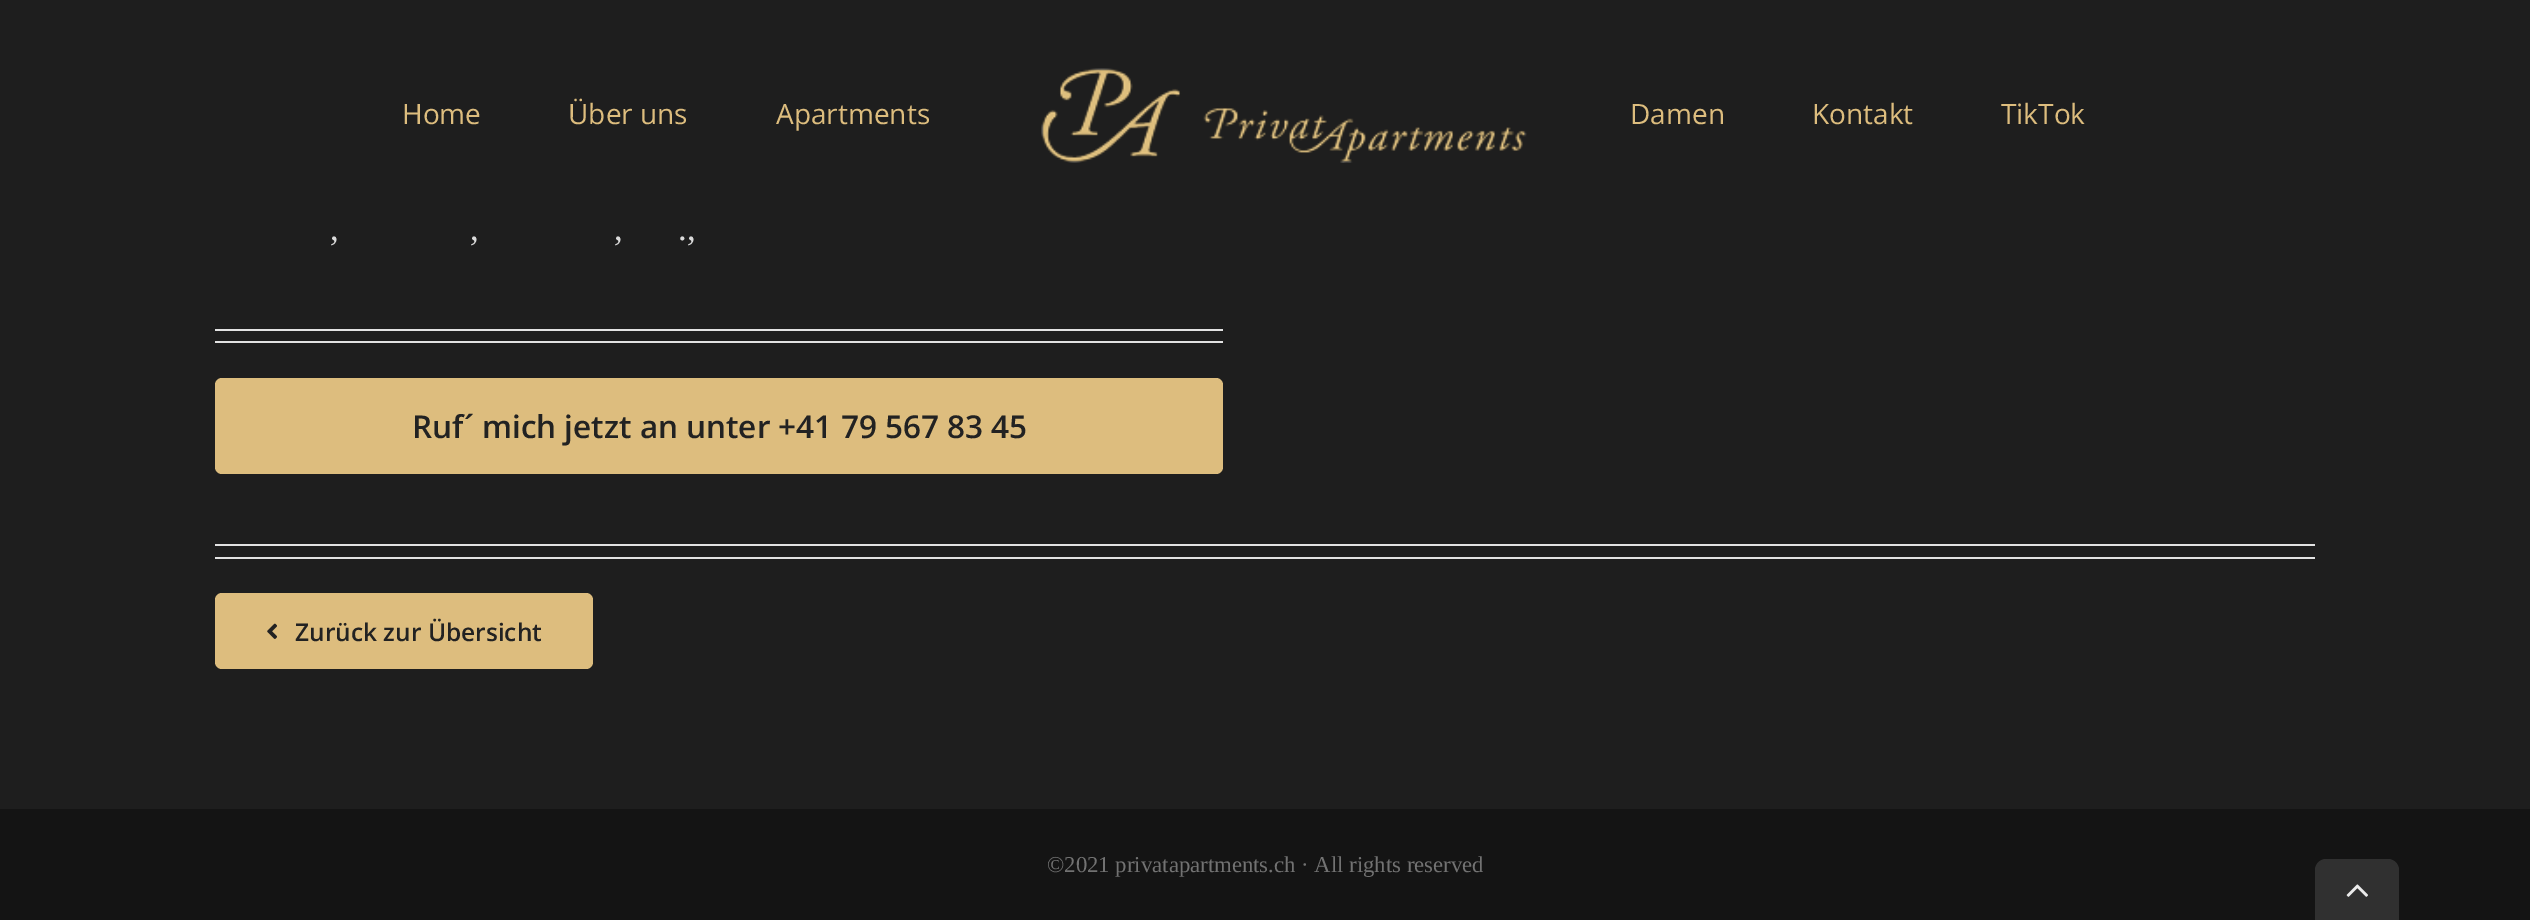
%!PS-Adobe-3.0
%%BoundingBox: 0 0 2530 920
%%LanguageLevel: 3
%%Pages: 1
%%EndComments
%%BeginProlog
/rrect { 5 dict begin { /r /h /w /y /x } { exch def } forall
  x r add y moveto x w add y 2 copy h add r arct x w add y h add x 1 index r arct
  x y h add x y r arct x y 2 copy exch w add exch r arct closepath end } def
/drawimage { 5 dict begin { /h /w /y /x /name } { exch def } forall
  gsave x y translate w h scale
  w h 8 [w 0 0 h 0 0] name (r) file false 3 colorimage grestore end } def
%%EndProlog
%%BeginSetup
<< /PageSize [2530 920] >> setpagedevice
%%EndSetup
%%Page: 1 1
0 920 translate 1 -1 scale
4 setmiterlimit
0.118 setgray
0 0 2530 920 rectfill
(images/1.raw) 1041 68 486 95 drawimage
0.886 setgray
215 329 1008 2 rectfill
215 341 1008 2 rectfill
0.867 0.741 0.494 setrgbcolor
215 378 1008 96 7 rrect fill
0.886 setgray
215 544 2100 2 rectfill
215 557 2100 2 rectfill
0.867 0.741 0.494 setrgbcolor
215 593 378 76 7 rrect fill
(images/2.raw) 267 623 10 16 drawimage
0.078 setgray
0 809 2530 111 rectfill
0.188 setgray
newpath 2326 859 moveto 2388 859 lineto 2394 859 2399 864 2399 870 curveto 2399 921 lineto 2315 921 lineto 2315 870 lineto 2315 864 2320 859 2326 859 curveto closepath fill
(images/3.raw) 2346 884 22 13 drawimage
/OpenSans-Regular [28 0 0 -28 0 0] selectfont
0.867 0.741 0.494 setrgbcolor
402 124 moveto (Home) show
568 124 moveto (Über uns) show
776 124 moveto (Apartments) show
1630 124 moveto (Damen) show
1812 124 moveto (Kontakt) show
2001 124 moveto (TikTok) show
/LiberationSerif-Regular [35 0 0 -35 0 0] selectfont
0.859 setgray
330 240 moveto (,) show
470 240 moveto (,) show
614 240 moveto (,) show
678 240 moveto (.,) show
/OpenSans-SemiBold [31.5 0 0 -31.5 0 0] selectfont
0.133 setgray
412 438 moveto (Ruf´ mich jetzt an unter +41 79 567 83 45) show
/OpenSans-SemiBold [24.5 0 0 -24.5 0 0] selectfont
295 641 moveto (Zurück zur Übersicht) show
/LiberationSerif-Regular [22.75 0 0 -22.75 0 0] selectfont
0.447 setgray
1047 872 moveto (©2021 privatapartments.ch · All rights reserved) show
showpage
%%EOF
